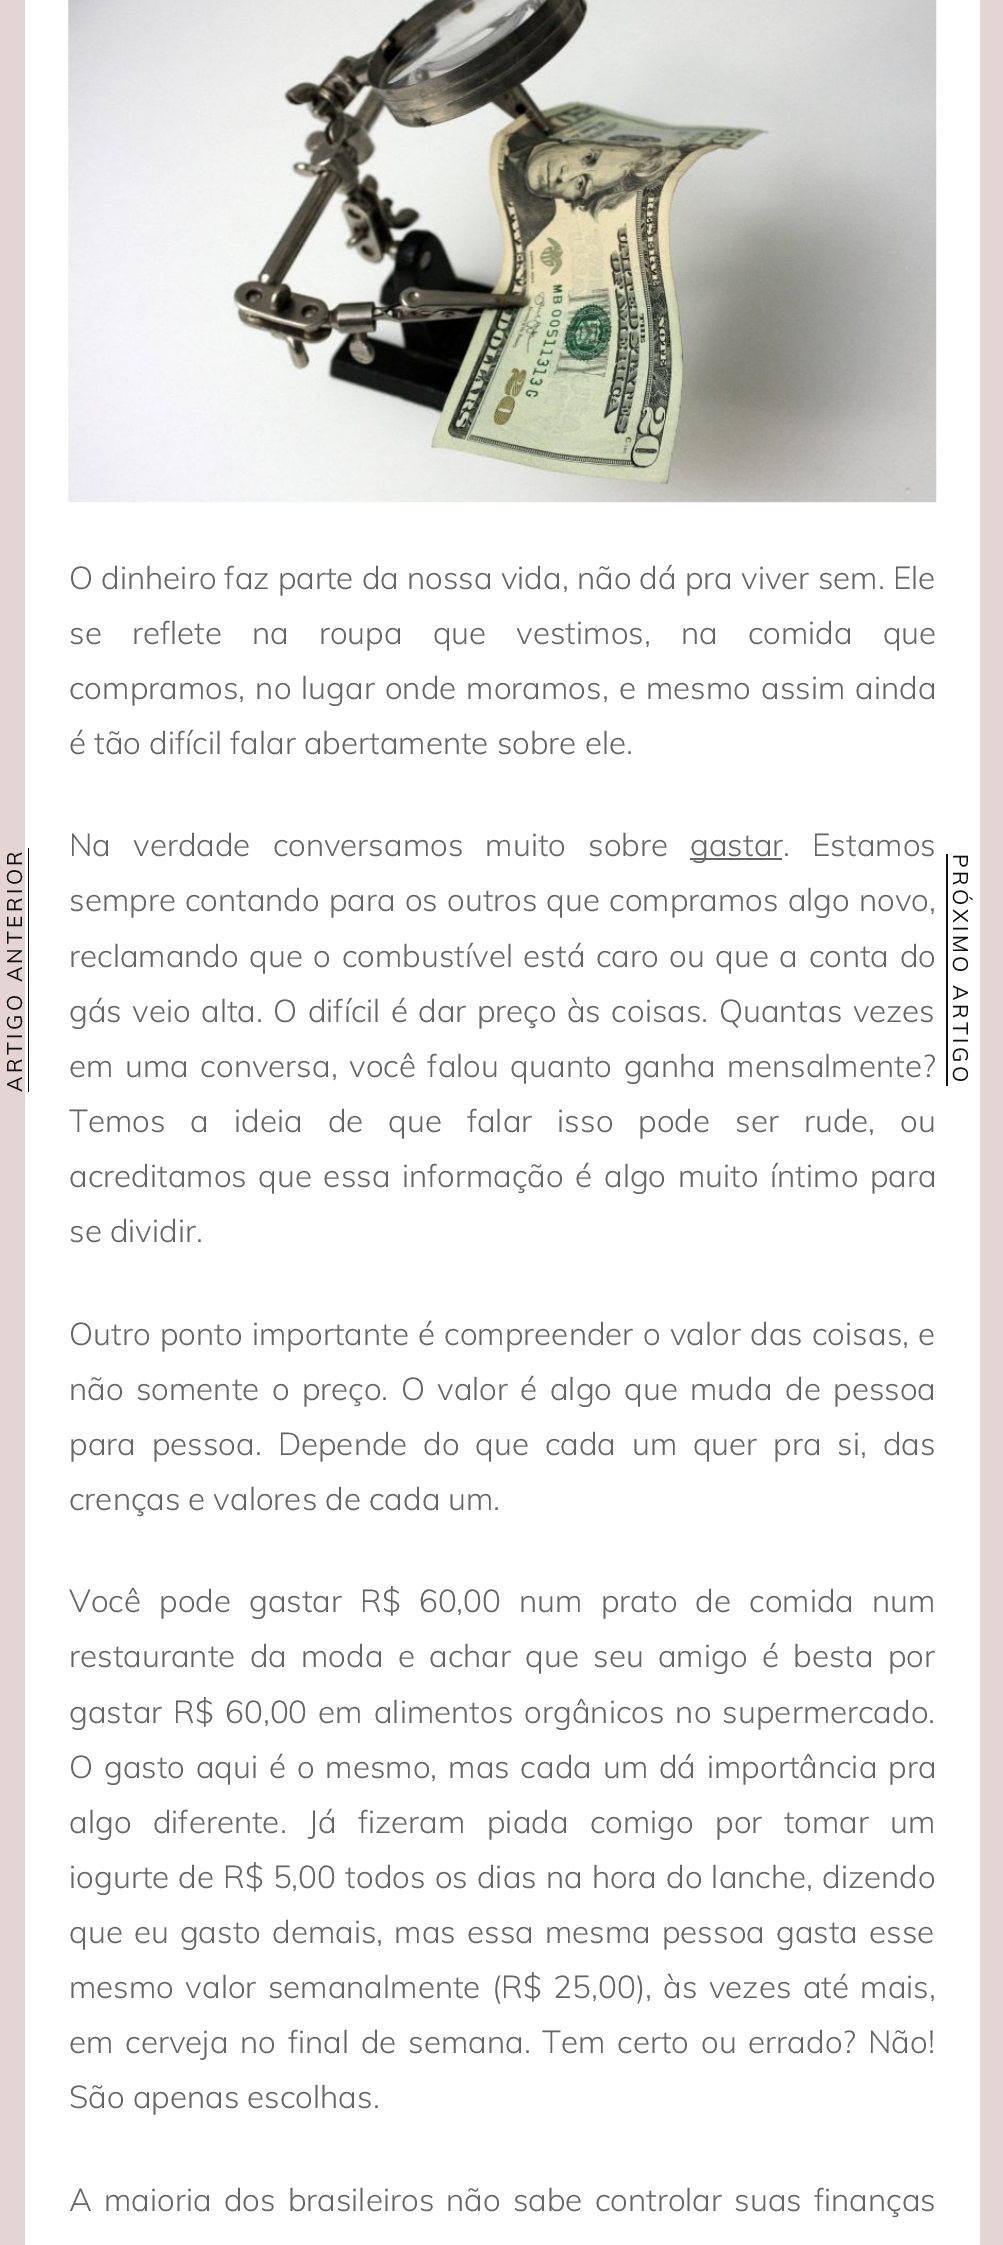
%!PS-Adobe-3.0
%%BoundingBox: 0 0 1003 2245
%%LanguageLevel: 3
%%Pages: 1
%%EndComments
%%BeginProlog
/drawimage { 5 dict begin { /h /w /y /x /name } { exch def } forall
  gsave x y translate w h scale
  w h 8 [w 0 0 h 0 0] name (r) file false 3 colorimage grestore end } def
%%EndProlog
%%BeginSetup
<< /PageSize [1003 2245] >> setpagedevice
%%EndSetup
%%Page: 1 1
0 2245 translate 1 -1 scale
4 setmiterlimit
0.894 0.831 0.831 setrgbcolor
0 0 1003 2245 rectfill
1 setgray
25 0 955 2245 rectfill
(images/1.raw) 68 0 869 503 drawimage
0.4 setgray
690 858 92 2 rectfill
0.067 setgray
28 848 1 244 rectfill
946 854 2 232 rectfill
/Muli-Light [31.5 0 0 -31.5 0 0] selectfont
0.4 setgray
69 589 moveto 0.1 0 32 (O dinheiro faz parte da nossa vida, não dá pra viver sem. Ele) widthshow
69 644 moveto 22 0 32 (se reflete na roupa que vestimos, na comida que) widthshow
69 699 moveto 2 0 32 (compramos, no lugar onde moramos, e mesmo assim ainda) widthshow
69 754 moveto (é tão difícil falar abertamente sobre ele.) show
69 856 moveto 14 0 32 (Na verdade conversamos muito sobre) widthshow
690 856 moveto (gastar) show
783 856 moveto 14 0 32 (. Estamos) widthshow
69 911 moveto 1 0 32 (sempre contando para os outros que compramos algo novo,) widthshow
69 967 moveto 2.5 0 32 (reclamando que o combustível está caro ou que a conta do) widthshow
69 1022 moveto 2.25 0 32 (gás veio alta. O difícil é dar preço às coisas. Quantas vezes) widthshow
69 1077 moveto 3.5 0 32 (em uma conversa,) widthshow
349 1077 moveto 3.5 0 32 (você falou quanto ganha mensalmente?) widthshow
69 1132 moveto 16.9 0 32 (Temos a ideia de que falar isso pode ser rude, ou) widthshow
69 1187 moveto 3.5 0 32 (acreditamos que essa informação é algo muito íntimo para) widthshow
69 1242 moveto (se dividir.) show
69 1345 moveto 1.25 0 32 (Outro ponto importante é compreender o valor das coisas, e) widthshow
69 1400 moveto 4.25 0 32 (não somente o preço. O valor é algo que muda de pessoa) widthshow
69 1455 moveto 7.75 0 32 (para pessoa. Depende do que cada um quer pra si, das) widthshow
69 1510 moveto (crenças e valores de cada um.) show
69 1612 moveto 10 0 32 (Você pode gastar R$ 60,00 num prato de comida num) widthshow
69 1667 moveto 6.25 0 32 (restaurante da moda e achar que seu amigo é besta por) widthshow
69 1723 moveto 3 0 32 (gastar R$ 60,00 em alimentos orgânicos no supermercado.) widthshow
69 1778 moveto 2.75 0 32 (O gasto aqui é o mesmo, mas cada um dá importância pra) widthshow
69 1833 moveto 13.25 0 32 (algo diferente.) widthshow
308 1833 moveto 13.25 0 32 (Já fizeram piada comigo por tomar um) widthshow
69 1888 moveto 1 0 32 (iogurte de R$ 5,00 todos os dias na hora do lanche, dizendo) widthshow
69 1943 moveto 3 0 32 (que eu gasto demais, mas essa mesma pessoa gasta esse) widthshow
69 1998 moveto 3.25 0 32 (mesmo valor semanalmente \(R$ 25,00\), às vezes até mais,) widthshow
69 2053 moveto 3.75 0 32 (em cerveja no final de semana. Tem certo ou errado? Não!) widthshow
69 2108 moveto (São apenas escolhas.) show
69 2211 moveto 4 0 32 (A maioria dos brasileiros não sabe controlar suas finanças) widthshow
/Muli-Regular [21 0 0 -21 0 0] selectfont
0.067 setgray
gsave 22 1092 translate -90 rotate 0 0 moveto 3.5 0 (ARTIGO ANTERIOR) ashow grestore
gsave 953 854 translate 90 rotate 0 0 moveto 3.5 0 (PRÓXIMO ARTIGO) ashow grestore
showpage
%%EOF
